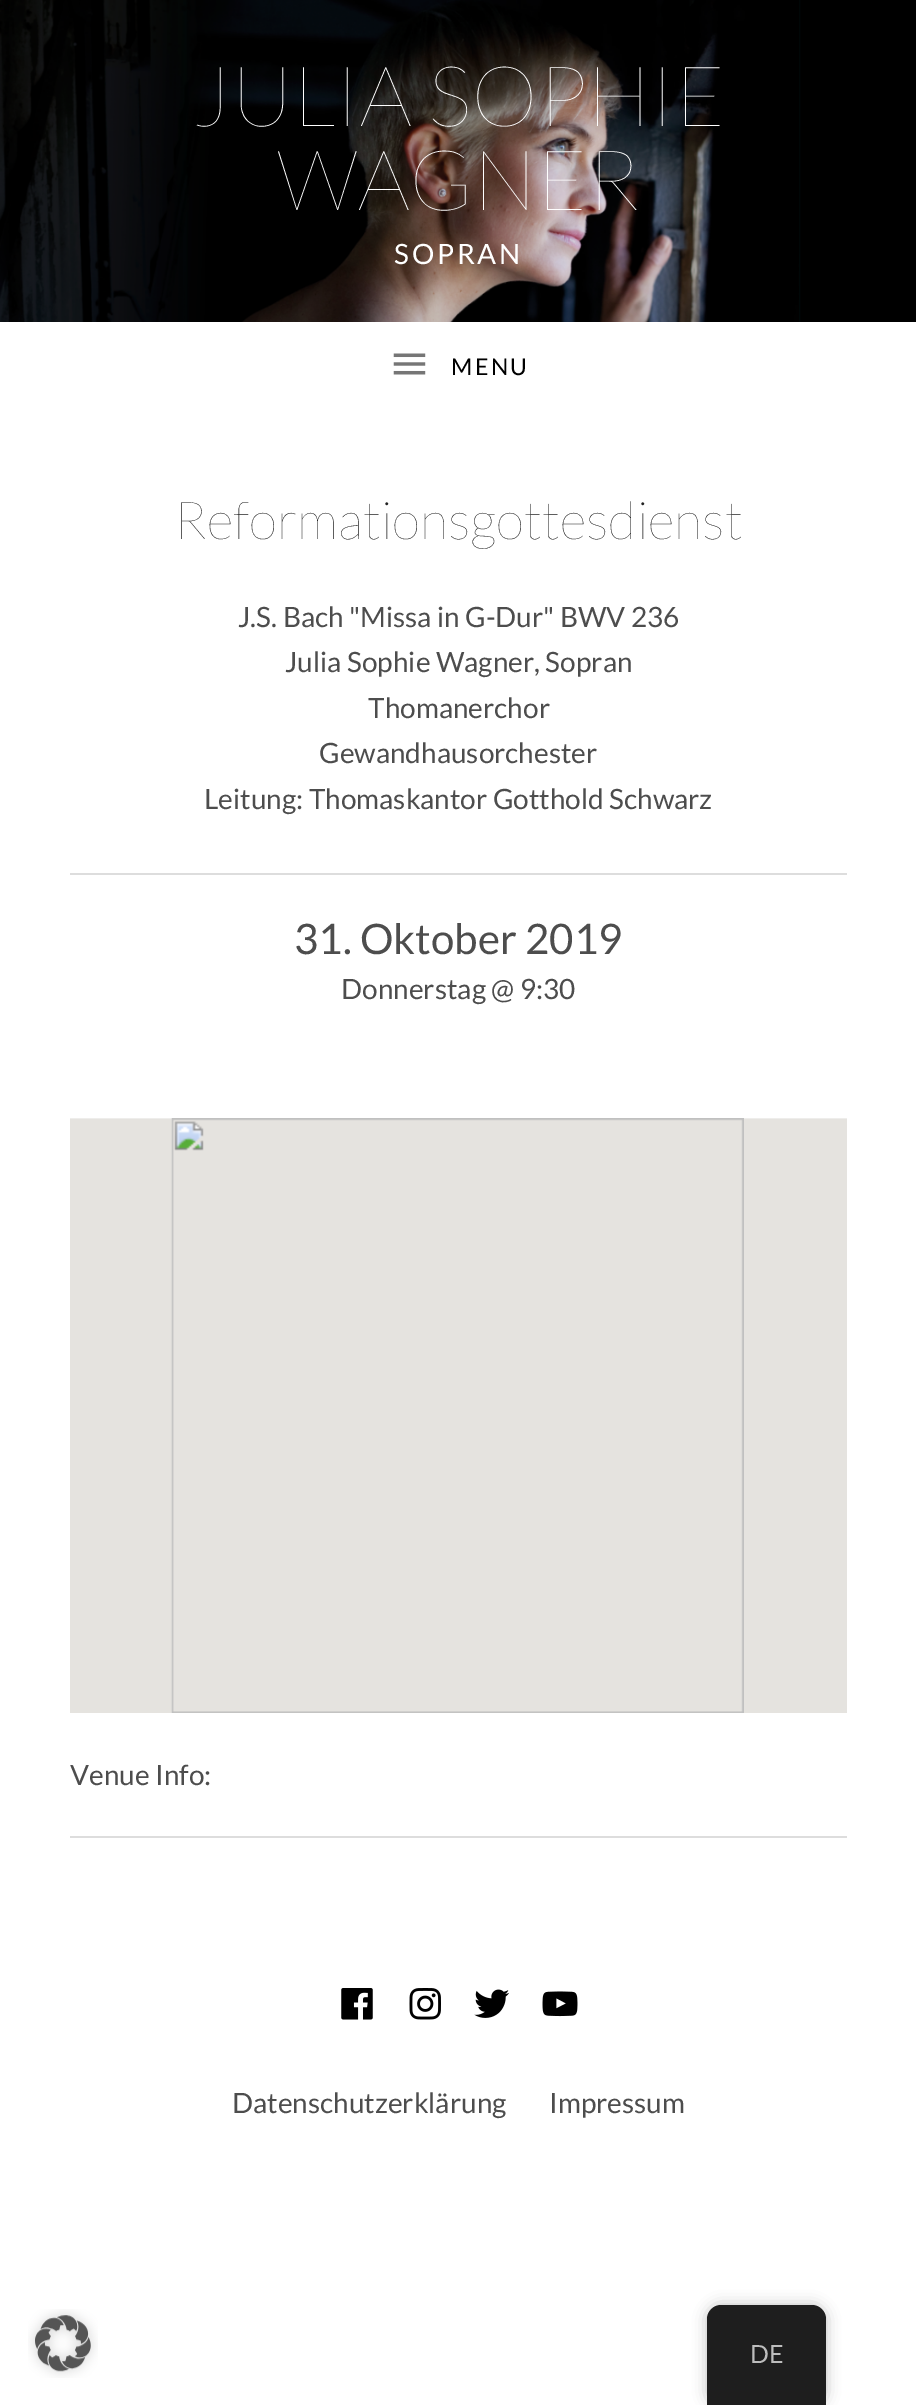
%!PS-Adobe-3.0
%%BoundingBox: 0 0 916 2405
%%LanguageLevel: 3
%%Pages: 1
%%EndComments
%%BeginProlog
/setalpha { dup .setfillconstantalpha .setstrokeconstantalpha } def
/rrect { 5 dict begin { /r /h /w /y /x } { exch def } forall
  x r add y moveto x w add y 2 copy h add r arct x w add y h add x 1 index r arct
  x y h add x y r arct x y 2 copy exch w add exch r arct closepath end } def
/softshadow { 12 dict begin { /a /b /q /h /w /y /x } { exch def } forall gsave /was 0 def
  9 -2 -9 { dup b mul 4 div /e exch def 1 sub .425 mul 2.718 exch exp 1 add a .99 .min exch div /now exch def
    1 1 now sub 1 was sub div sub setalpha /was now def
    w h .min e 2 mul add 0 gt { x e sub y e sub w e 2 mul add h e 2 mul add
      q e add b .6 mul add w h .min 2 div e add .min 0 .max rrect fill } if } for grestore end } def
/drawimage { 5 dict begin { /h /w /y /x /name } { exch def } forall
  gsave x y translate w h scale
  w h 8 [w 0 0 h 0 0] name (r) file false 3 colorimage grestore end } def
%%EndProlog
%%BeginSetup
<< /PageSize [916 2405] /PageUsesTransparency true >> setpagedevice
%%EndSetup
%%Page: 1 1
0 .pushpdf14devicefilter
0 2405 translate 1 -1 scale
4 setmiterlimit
1 setgray
0 0 916 2405 rectfill
(images/1.raw) 0 0 916 322 drawimage
(images/2.raw) 393 353 33 22 drawimage
0.867 setgray
70 873 777 2 rectfill
0.98 setgray
70 1118 777 1 rectfill
(images/3.raw) 70 1118 777 595 drawimage
0.867 setgray
70 1836 777 2 rectfill
(images/4.raw) 341 1988 32 32 drawimage
(images/5.raw) 409 1988 32 32 drawimage
(images/6.raw) 474 1989 35 29 drawimage
(images/7.raw) 542 1991 36 26 drawimage
(images/8.raw) 28 2309 70 69 drawimage
0 setgray
707 2305 119 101 14 7 0.25 softshadow
0.118 setgray
newpath 721 2305 moveto 812 2305 lineto 819.5 2305 826 2311.5 826 2319 curveto 826 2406 lineto 707 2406 lineto 707 2319 lineto 707 2311.5 713.5 2305 721 2305 curveto closepath fill
/Lato-Thin [84 0 0 -84 0 0] selectfont
1 setgray
192 126 moveto (JULIA SOPHIE) show
277 210 moveto (WAGNER) show
/Lato-Regular [28 0 0 -28 0 0] selectfont
394 264 moveto 2.75 0 (SOPRAN) ashow
/Lato-Regular [23 0 0 -23 0 0] selectfont
0 setgray
451 375 moveto 2.5 0 (MENU) ashow
/Lato-Thin [52.5 0 0 -52.5 0 0] selectfont
0.133 setgray
174 539 moveto (Reformationsgottesdienst) show
/Lato-Regular [28 0 0 -28 0 0] selectfont
0.302 setgray
238 627 moveto (J.S. Bach "Missa in G-Dur" BWV 236) show
285 672 moveto (Julia Sophie Wagner, Sopran) show
368 718 moveto (Thomanerchor) show
319 763 moveto (Gewandhausorchester) show
204 809 moveto (Leitung: Thomaskantor Gotthold Schwarz) show
/Lato-Regular [42 0 0 -42 0 0] selectfont
294 954 moveto (31. Oktober 2019) show
/Lato-Regular [28 0 0 -28 0 0] selectfont
341 999 moveto (Donnerstag @ 9:30) show
70 1785 moveto (Venue Info:) show
232 2113 moveto (Datenschutzerklärung) show
549 2113 moveto (Impressum) show
/Lato-Regular [25 0 0 -25 0 0] selectfont
0.741 setgray
750 2363 moveto (DE) show
.poppdf14devicefilter showpage
%%EOF
